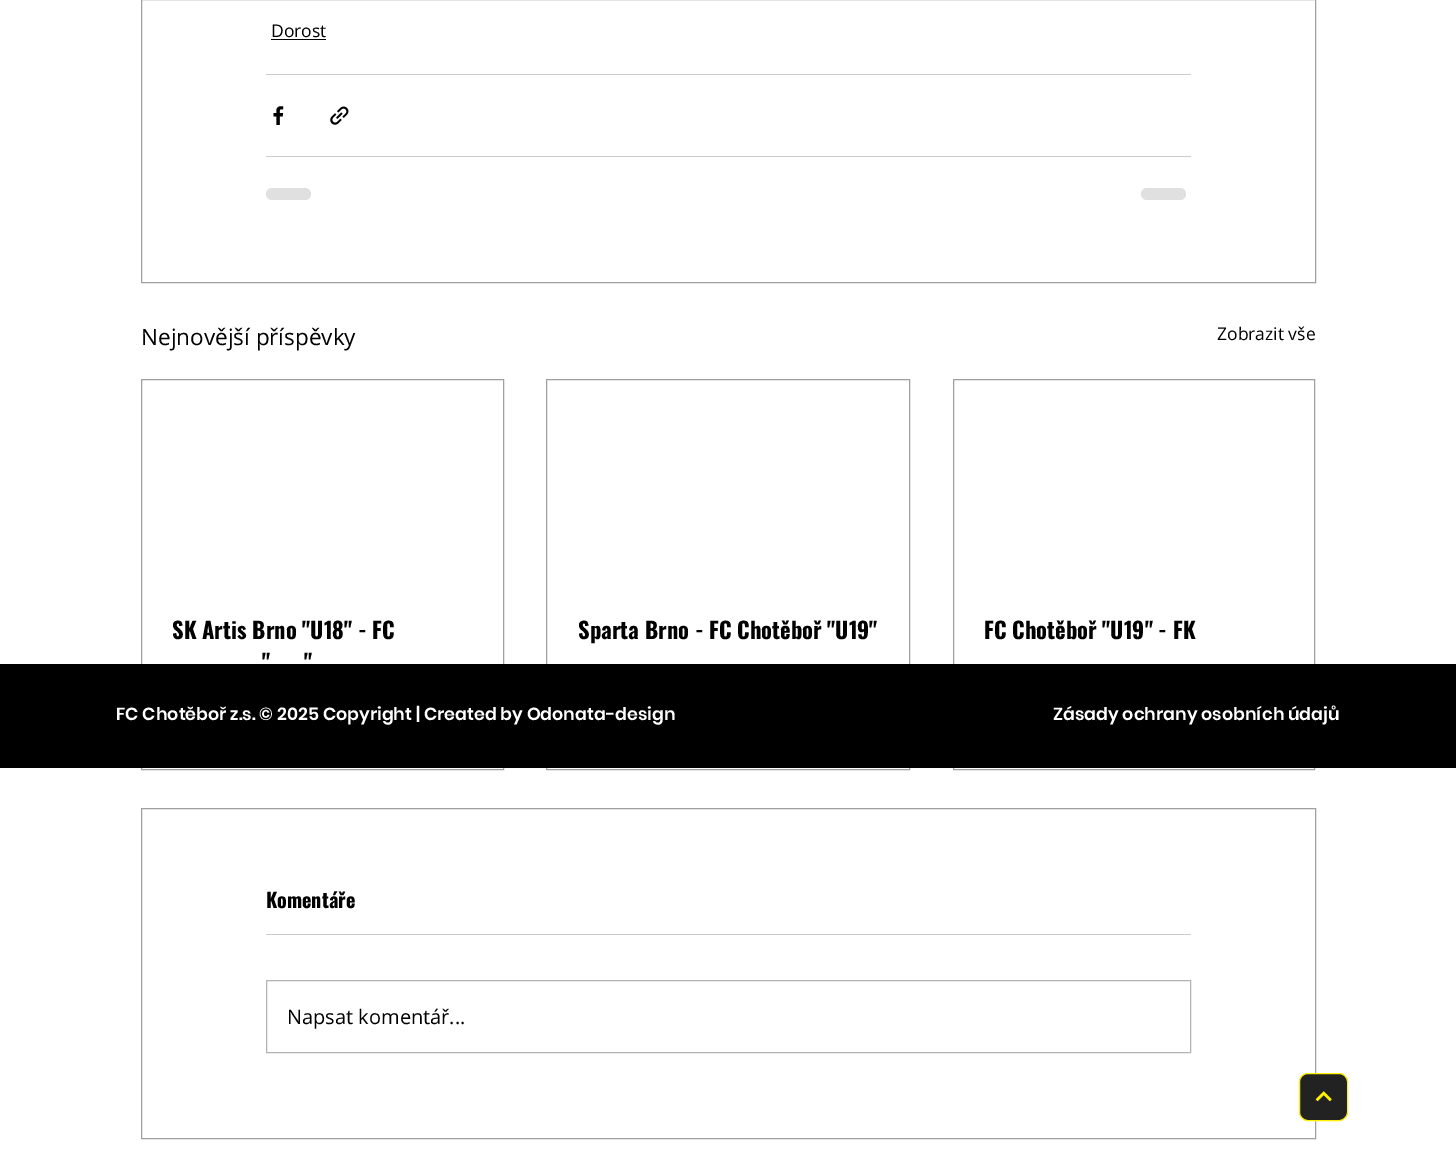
%!PS-Adobe-3.0
%%BoundingBox: 0 0 1456 1163
%%LanguageLevel: 3
%%Pages: 1
%%EndComments
%%BeginProlog
/rrect { 5 dict begin { /r /h /w /y /x } { exch def } forall
  x r add y moveto x w add y 2 copy h add r arct x w add y h add x 1 index r arct
  x y h add x y r arct x y 2 copy exch w add exch r arct closepath end } def
/drawimage { 5 dict begin { /h /w /y /x /name } { exch def } forall
  gsave x y translate w h scale
  w h 8 [w 0 0 h 0 0] name (r) file false 3 colorimage grestore end } def
%%EndProlog
%%BeginSetup
<< /PageSize [1456 1163] >> setpagedevice
%%EndSetup
%%Page: 1 1
0 1163 translate 1 -1 scale
4 setmiterlimit
1 setgray
0 0 1456 1163 rectfill
0.627 setgray
141.5 -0.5 1174 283 rectstroke
0 setgray
271 39 55 1 rectfill
0.8 setgray
266 74 925 1 rectfill
(images/1.raw) 273 106 11 19 drawimage
(images/2.raw) 330 106 19 19 drawimage
266 156 925 1 rectfill
0.878 setgray
266 188 45 12 6 rrect fill
1141 188 45 12 6 rrect fill
0.627 setgray
141.5 379.5 362 390 rectstroke
546.5 379.5 363 390 rectstroke
953.5 379.5 361 390 rectstroke
141.5 808.5 1174 330 rectstroke
0.8 setgray
266 934 925 1 rectfill
0.702 setgray
266.5 980.5 924 72 rectstroke
0 setgray
0 664 1456 104 rectfill
0.133 setgray
1299.5 1073.5 48 47 8.5 rrect gsave fill grestore
1 0.945 0 setrgbcolor
stroke
(images/3.raw) 1315 1091 17 11 drawimage
/OpenSans-Regular [17.5 0 0 -17.5 0 0] selectfont
0 setgray
271 37 moveto (Dorost) show
/OpenSans-Regular [22.5 0 0 -22.5 0 0] selectfont
141 345 moveto (Nejnovější příspěvky) show
/OpenSans-Regular [17.5 0 0 -17.5 0 0] selectfont
1217 340 moveto (Zobrazit vše) show
gsave
173 613 300 65 rectclip
/Oswald-Bold [22.5 0 0 -22.5 0 0] selectfont
172 639 moveto (SK Artis Brno "U18" - FC) show
grestore
/Oswald-Bold [22.5 0 0 -22.5 0 0] selectfont
262 671 moveto (") show
304 671 moveto (") show
578 639 moveto (Sparta Brno - FC Chotěboř "U19") show
984 639 moveto (FC Chotěboř "U19" - FK) show
/Oswald-Bold [20 0 0 -20 0 0] selectfont
266 908 moveto (Komentáře) show
/OpenSans-Regular [20 0 0 -20 0 0] selectfont
287 1024 moveto (Napsat komentář...) show
/Poppins-SemiBold [17.5 0 0 -17.5 0 0] selectfont
1 setgray
116 720 moveto (FC Chotěboř z.s. © 2025 Copyright | Created by Odonata-design) show
1053 720 moveto (Zásady ochrany osobních údajů) show
showpage
%%EOF
